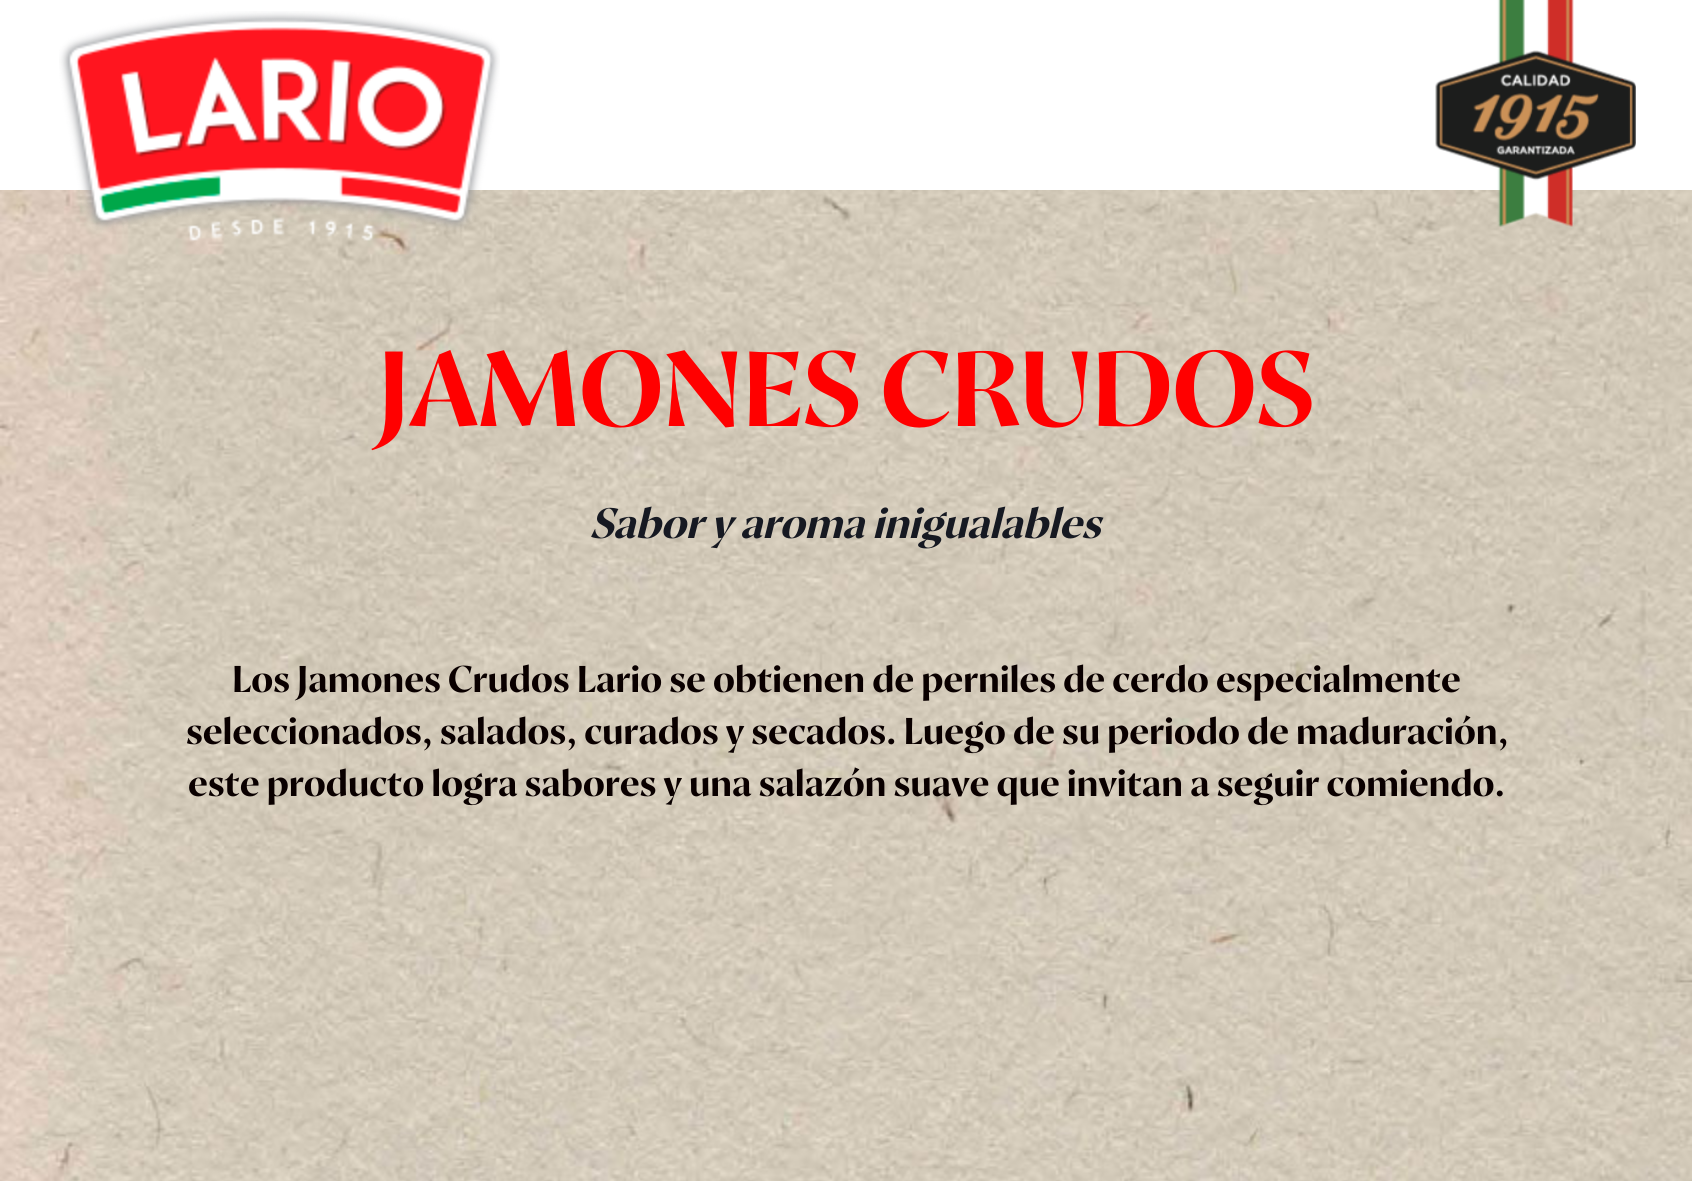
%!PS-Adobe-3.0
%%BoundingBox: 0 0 1692 1181
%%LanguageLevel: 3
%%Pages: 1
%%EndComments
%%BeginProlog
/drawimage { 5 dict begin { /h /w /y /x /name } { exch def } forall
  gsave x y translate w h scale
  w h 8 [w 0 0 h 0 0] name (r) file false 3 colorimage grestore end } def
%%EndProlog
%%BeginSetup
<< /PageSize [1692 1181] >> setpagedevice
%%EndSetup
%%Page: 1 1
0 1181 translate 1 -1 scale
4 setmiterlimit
1 setgray
0 0 1692 1181 rectfill
(images/4.raw) 0 190 1692 991 drawimage
(images/1.raw) 59 11 441 231 drawimage
(images/3.raw) 1618 79 6 2 drawimage
(images/2.raw) 1435 0 201 227 drawimage
(images/5.raw) 371 349 941 102 drawimage
(images/6.raw) 591 506 513 43 drawimage
(images/7.raw) 234 664 1226 37 drawimage
(images/8.raw) 187 715 1320 39 drawimage
(images/9.raw) 189 767 1314 39 drawimage
showpage
%%EOF
